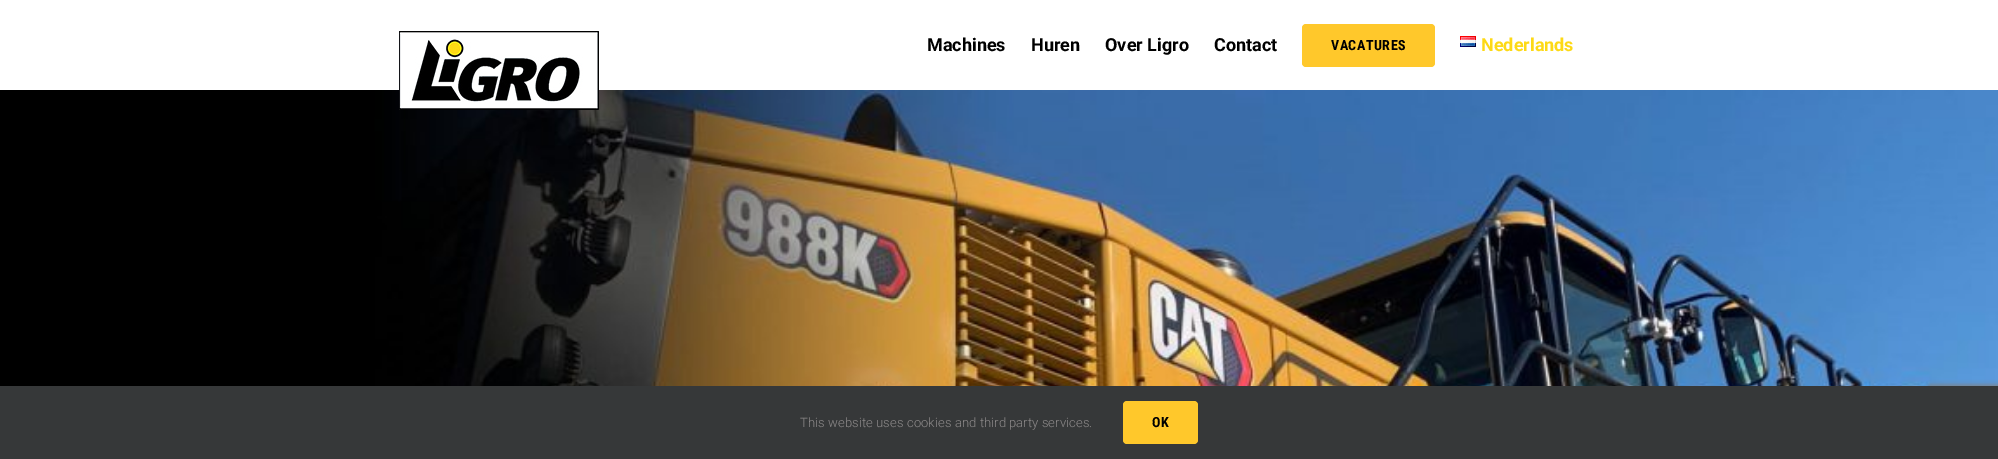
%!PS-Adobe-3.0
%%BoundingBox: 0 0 1998 459
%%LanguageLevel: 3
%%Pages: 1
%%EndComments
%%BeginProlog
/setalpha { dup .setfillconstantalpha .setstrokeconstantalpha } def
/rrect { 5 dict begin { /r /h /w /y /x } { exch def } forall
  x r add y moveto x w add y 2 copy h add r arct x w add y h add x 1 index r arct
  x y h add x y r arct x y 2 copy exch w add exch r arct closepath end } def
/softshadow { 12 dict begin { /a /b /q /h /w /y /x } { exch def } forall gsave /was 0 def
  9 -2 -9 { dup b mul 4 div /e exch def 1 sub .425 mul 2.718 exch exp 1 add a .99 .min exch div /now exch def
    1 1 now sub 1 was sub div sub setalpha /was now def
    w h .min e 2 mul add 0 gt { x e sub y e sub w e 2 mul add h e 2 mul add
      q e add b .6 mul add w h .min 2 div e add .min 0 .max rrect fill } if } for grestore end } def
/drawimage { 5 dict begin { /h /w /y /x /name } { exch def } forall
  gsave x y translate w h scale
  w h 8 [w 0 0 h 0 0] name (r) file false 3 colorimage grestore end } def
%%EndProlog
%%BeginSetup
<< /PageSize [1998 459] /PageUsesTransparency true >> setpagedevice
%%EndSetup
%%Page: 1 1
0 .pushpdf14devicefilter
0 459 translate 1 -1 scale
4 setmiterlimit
1 setgray
0 0 1998 459 rectfill
(images/3.raw) 0 90 1998 296 drawimage
(images/1.raw) 399 31 200 79 drawimage
1 0.784 0.169 setrgbcolor
1302 24 133 43 4 rrect fill
(images/2.raw) 1460 36 16 11 drawimage
0.502 setgray
1928 385 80 60 2 2.5 1 softshadow
0.212 0.22 0.224 setrgbcolor
0 386 1998 73 rectfill
1 0.784 0.169 setrgbcolor
1123 401 75 43 4 rrect fill
/Roboto-Bold [18 0 0 -18 0 0] selectfont
0 setgray
927 51 moveto (Machines) show
1031 51 moveto (Huren) show
1105 51 moveto (Over Ligro) show
1214 51 moveto (Contact) show
/RobotoCondensed-Bold [14 0 0 -14 0 0] selectfont
1331 50 moveto 0.5 0 (VACATURES) ashow
/Roboto-Bold [18 0 0 -18 0 0] selectfont
0.992 0.851 0.082 setrgbcolor
1481 51 moveto (Nederlands) show
/Roboto-Light [13 0 0 -13 0 0] selectfont
0.549 0.537 0.537 setrgbcolor
800 427 moveto 0.1 0 (This website uses cookies and third party services.) ashow
/RobotoCondensed-Bold [14 0 0 -14 0 0] selectfont
0 setgray
1152 427 moveto 0.5 0 (OK) ashow
.poppdf14devicefilter showpage
%%EOF
